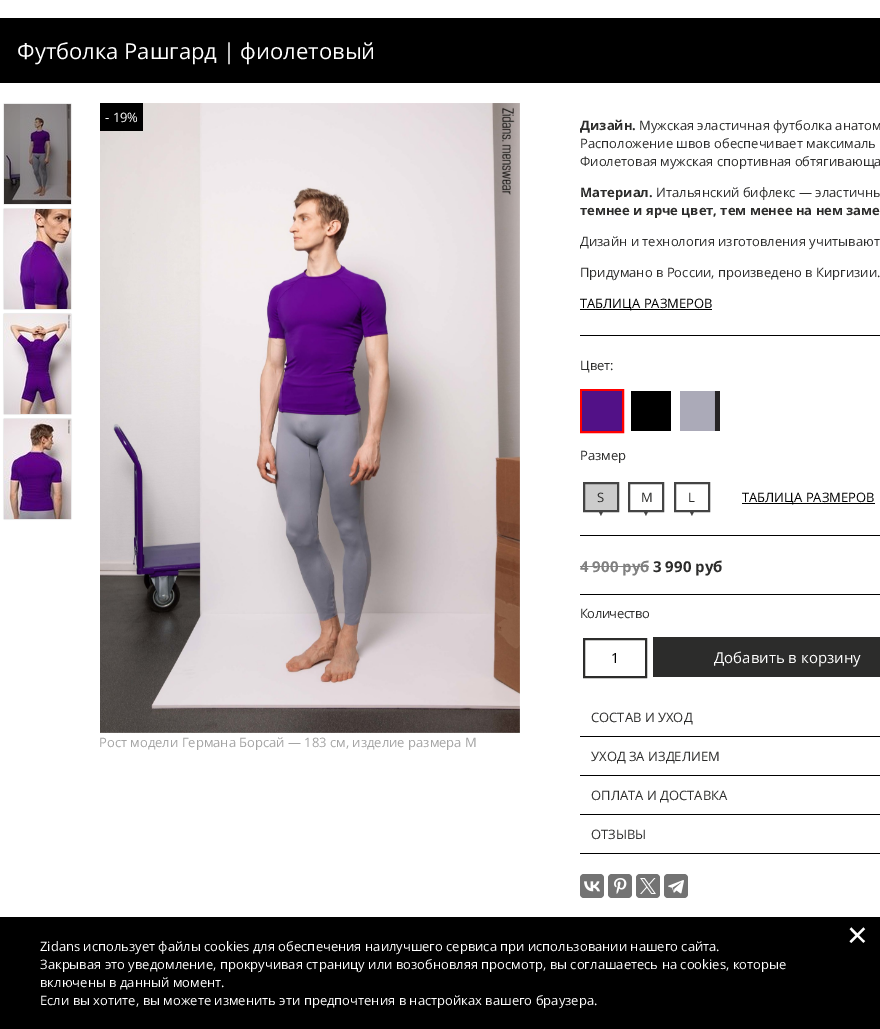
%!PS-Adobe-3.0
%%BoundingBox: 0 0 880 1029
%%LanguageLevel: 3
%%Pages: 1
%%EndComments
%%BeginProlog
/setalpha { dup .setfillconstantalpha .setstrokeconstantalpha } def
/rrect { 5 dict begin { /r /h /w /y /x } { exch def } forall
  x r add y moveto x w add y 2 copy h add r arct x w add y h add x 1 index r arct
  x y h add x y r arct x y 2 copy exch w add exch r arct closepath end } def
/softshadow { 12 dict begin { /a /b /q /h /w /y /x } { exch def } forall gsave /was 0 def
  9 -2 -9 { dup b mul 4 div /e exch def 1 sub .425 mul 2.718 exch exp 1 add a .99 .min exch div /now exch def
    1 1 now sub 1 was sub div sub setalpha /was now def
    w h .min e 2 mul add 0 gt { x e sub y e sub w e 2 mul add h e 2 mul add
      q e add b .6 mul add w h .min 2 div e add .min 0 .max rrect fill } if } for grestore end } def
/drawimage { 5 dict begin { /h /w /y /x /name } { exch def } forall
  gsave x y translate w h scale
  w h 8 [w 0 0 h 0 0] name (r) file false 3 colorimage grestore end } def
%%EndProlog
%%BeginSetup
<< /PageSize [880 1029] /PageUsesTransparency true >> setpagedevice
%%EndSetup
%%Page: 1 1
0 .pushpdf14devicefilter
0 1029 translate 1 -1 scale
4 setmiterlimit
1 setgray
0 0 880 1029 rectfill
0 setgray
0 18 880 65 rectfill
4 104 67 100 0 0.5 0.3 softshadow
(images/1.raw) 4 104 67 100 drawimage
4 209 67 100 0 0.5 0.3 softshadow
(images/2.raw) 4 209 67 100 drawimage
4 314 67 100 0 0.5 0.3 softshadow
(images/3.raw) 4 314 67 100 drawimage
4 419 67 100 0 0.5 0.3 softshadow
(images/4.raw) 4 419 67 100 drawimage
(images/5.raw) 100 103 420 630 drawimage
100 103 43 28 rectfill
580 335 300 1 rectfill
580 309 132 1 rectfill
1 0 0 setrgbcolor
2 setlinewidth
581 390 42 42 rectstroke
0.322 0.067 0.529 setrgbcolor
582 391 40 40 rectfill
0 setgray
631 391 40 40 rectfill
(images/6.raw) 680 391 40 40 drawimage
580 535 300 1 rectfill
0.8 setgray
newpath 584 483 moveto 618 483 lineto 618 511 lineto 584 511 lineto closepath gsave fill grestore
0.267 setgray
stroke
629 483 34 28 rectstroke
675 483 34 28 rectstroke
0 setgray
742 503 133 1 rectfill
580 594 300 1 rectfill
0.502 setgray
580 566 69 1 rectfill
0.173 0.173 0.169 setrgbcolor
584 639 62 38 rectstroke
653 637 227 40 rectfill
0 setgray
580 736 300 1 rectfill
580 775 300 1 rectfill
580 814 300 1 rectfill
580 853 300 1 rectfill
0.451 setgray
580 874 24 24 4 rrect fill
(images/7.raw) 584 881 16 11 drawimage
608 874 24 24 4 rrect fill
(images/8.raw) 614 878 13 16 drawimage
636 874 24 24 4 rrect fill
(images/9.raw) 640 878 16 16 drawimage
664 874 24 24 4 rrect fill
(images/10.raw) 668 880 16 14 drawimage
0 setgray
0 917 880 112 rectfill
/OpenSans-Regular [22 0 0 -22 0 0] selectfont
1 setgray
17 59 moveto (Футболка Рашгард | фиолетовый) show
/OpenSans-Regular [13 0 0 -13 0 0] selectfont
105 122 moveto (- 19%) show
0.643 setgray
99 747 moveto (Рост модели Германа Борсай — 183 см, изделие размера M) show
/OpenSans-Bold [13 0 0 -13 0 0] selectfont
0.173 0.173 0.169 setrgbcolor
580 130 moveto (Дизайн.) show
/OpenSans-Regular [13 0 0 -13 0 0] selectfont
639 130 moveto (Мужская эластичная футболка анатом) show
580 148 moveto (Расположение швов обеспечивает максималь) show
580 166 moveto (Фиолетовая мужская спортивная обтягивающа) show
/OpenSans-Bold [13 0 0 -13 0 0] selectfont
580 197 moveto (Материал.) show
/OpenSans-Regular [13 0 0 -13 0 0] selectfont
656 197 moveto (Итальянский бифлекс — эластичны) show
/OpenSans-Bold [13 0 0 -13 0 0] selectfont
580 215 moveto (темнее и ярче цвет, тем менее на нем заме) show
/OpenSans-Regular [13 0 0 -13 0 0] selectfont
580 246 moveto (Дизайн и технология изготовления учитывают) show
580 277 moveto (Придумано в России, произведено в Киргизии.) show
0 setgray
580 308 moveto (ТАБЛИЦА РАЗМЕРОВ) show
0.173 0.173 0.169 setrgbcolor
580 370 moveto (Цвет:) show
580 460 moveto (Размер) show
597 502 moveto (S) show
/LiberationSans-Bold [8 0 0 -8 0 0] selectfont
0.267 setgray
597 516 moveto (▼) show
/OpenSans-Regular [13 0 0 -13 0 0] selectfont
0.173 0.173 0.169 setrgbcolor
641 502 moveto (M) show
/LiberationSans-Bold [8 0 0 -8 0 0] selectfont
0.267 setgray
642 516 moveto (▼) show
/OpenSans-Regular [13 0 0 -13 0 0] selectfont
0.173 0.173 0.169 setrgbcolor
688 502 moveto (L) show
/LiberationSans-Bold [8 0 0 -8 0 0] selectfont
0.267 setgray
688 516 moveto (▼) show
/OpenSans-Regular [13 0 0 -13 0 0] selectfont
0 setgray
742 502 moveto (ТАБЛИЦА РАЗМЕРОВ) show
/OpenSans-Bold [15 0 0 -15 0 0] selectfont
0.502 setgray
580 572 moveto (4 900 руб) show
0.173 0.173 0.169 setrgbcolor
653 572 moveto (3 990 руб) show
/OpenSans-Regular [13 0 0 -13 0 0] selectfont
580 618 moveto -0.5 0 (Количество) ashow
/OpenSans-Regular [14 0 0 -14 0 0] selectfont
0 setgray
611 663 moveto (1) show
/OpenSans-Regular [15 0 0 -15 0 0] selectfont
1 setgray
714 663 moveto (Добавить в корзину) show
/OpenSans-Regular [13 0 0 -13 0 0] selectfont
0.173 0.173 0.169 setrgbcolor
591 722 moveto (СОСТАВ И УХОД) show
591 761 moveto (УХОД ЗА ИЗДЕЛИЕМ) show
591 800 moveto (ОПЛАТА И ДОСТАВКА) show
591 839 moveto (ОТЗЫВЫ) show
/DejaVuSans-Regular [27 0 0 -27 0 0] selectfont
1 setgray
846 945 moveto (✕) show
/OpenSans-Regular [13 0 0 -13 0 0] selectfont
40 951 moveto (Zidans использует файлы cookies для обеспечения наилучшего сервиса при использовании нашего сайта.) show
40 969 moveto (Закрывая это уведомление, прокручивая страницу или возобновляя просмотр, вы соглашаетесь на cookies, которые) show
40 987 moveto (включены в данный момент.) show
40 1005 moveto (Если вы хотите, вы можете изменить эти предпочтения в настройках вашего браузера.) show
.poppdf14devicefilter showpage
%%EOF
